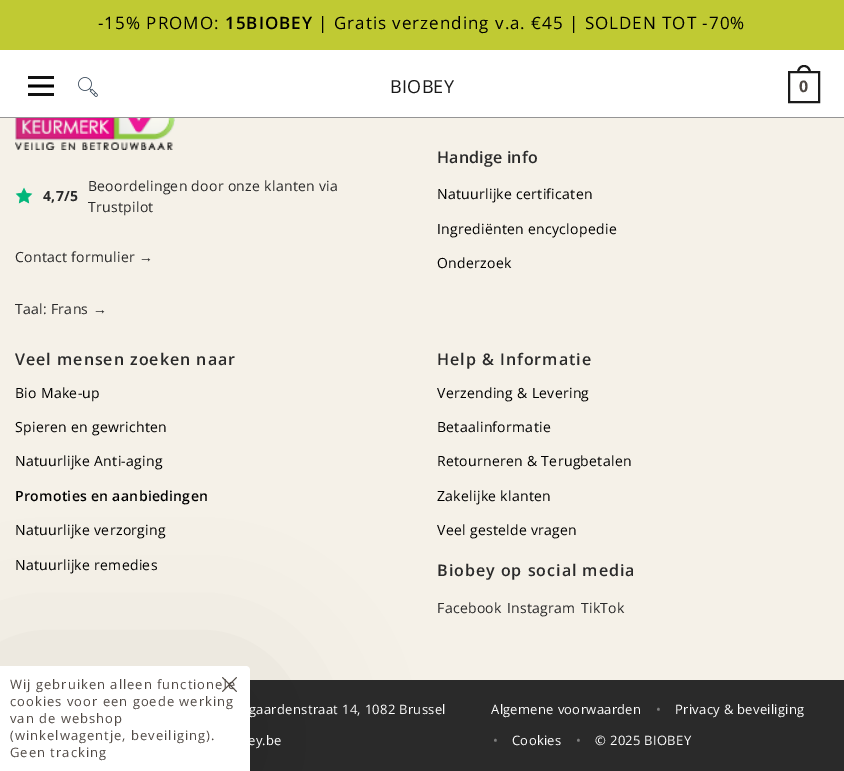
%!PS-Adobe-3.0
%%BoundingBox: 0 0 844 771
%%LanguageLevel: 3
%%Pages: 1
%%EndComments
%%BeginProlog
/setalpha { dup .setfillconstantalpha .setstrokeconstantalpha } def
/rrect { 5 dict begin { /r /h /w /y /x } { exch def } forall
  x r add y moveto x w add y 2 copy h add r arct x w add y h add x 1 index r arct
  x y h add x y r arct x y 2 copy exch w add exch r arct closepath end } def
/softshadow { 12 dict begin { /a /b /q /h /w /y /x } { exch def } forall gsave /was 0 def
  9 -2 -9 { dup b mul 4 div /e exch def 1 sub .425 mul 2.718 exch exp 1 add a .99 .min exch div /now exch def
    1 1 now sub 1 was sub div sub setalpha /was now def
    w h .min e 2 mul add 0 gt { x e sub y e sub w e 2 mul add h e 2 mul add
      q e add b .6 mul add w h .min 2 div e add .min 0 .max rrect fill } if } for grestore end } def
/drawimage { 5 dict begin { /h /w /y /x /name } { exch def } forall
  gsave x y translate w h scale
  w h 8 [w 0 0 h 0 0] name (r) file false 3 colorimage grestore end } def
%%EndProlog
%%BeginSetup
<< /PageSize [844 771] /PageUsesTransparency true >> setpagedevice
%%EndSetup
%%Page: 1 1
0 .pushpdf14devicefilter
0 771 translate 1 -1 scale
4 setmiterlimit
0.961 0.945 0.91 setrgbcolor
0 0 844 771 rectfill
1 setgray
0 50 844 67 rectfill
0.753 0.792 0.2 setrgbcolor
0 0 844 50 rectfill
0.584 setgray
0 117 844 1 rectfill
0.067 setgray
28 76 26 3 rectfill
0 setgray
2.8 setlinewidth
newpath 28 86 moveto 54 86 lineto stroke
0.067 setgray
28 93 26 3 rectfill
(images/1.raw) 78 77 20 20 drawimage
0.102 setgray
2 setlinewidth
789 72 30 30 rectstroke
newpath 804 65 moveto 808.5 65 811 69 811 73 curveto 797 73 lineto 797 69 799.5 65 804 65 curveto closepath 804 67 moveto 807.5 67 809 70 809 73 curveto 799 73 lineto 799 70 800.5 67 804 67 curveto closepath eofill
(images/2.raw) 15 118 160 32 drawimage
(images/3.raw) 15 187 18 17 drawimage
0.165 setgray
250 680 594 91 rectfill
0 setgray
0 686 250 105 4 75 0.1 softshadow
1 setgray
newpath 0 666 moveto 246 666 lineto 248 666 250 668 250 670 curveto 250 771 lineto 0 771 lineto closepath fill
/OpenSans-Regular [17 0 0 -17 0 0] selectfont
0 setgray
98 29 moveto 1 0 (-15% PROMO:) ashow
/OpenSans-SemiBold [17 0 0 -17 0 0] selectfont
225 29 moveto 1 0 (15BIOBEY) ashow
/OpenSans-Regular [17 0 0 -17 0 0] selectfont
318 29 moveto 1 0 (| Gratis verzending v.a. €45 | SOLDEN TOT -70%) ashow
/OpenSans-Regular [18 0 0 -18 0 0] selectfont
0.102 setgray
390 93 moveto 0.3 0 (BIOBEY) ashow
/OpenSans-Bold [16 0 0 -16 0 0] selectfont
0.31 0.282 0.263 setrgbcolor
799 92 moveto 1 0 (0) ashow
/OpenSans-Bold [14 0 0 -14 0 0] selectfont
0.165 setgray
43 201 moveto 0.3 0 (4,7/5) ashow
/OpenSans-Regular [14 0 0 -14 0 0] selectfont
88 191 moveto 0.3 0 (Beoordelingen door onze klanten via) ashow
88 212 moveto 0.3 0 (Trustpilot) ashow
15 262 moveto 0.3 0 (Contact formulier) ashow
/LiberationSans-Regular [14 0 0 -14 0 0] selectfont
139 262 moveto 0.3 0 (→) ashow
/OpenSans-Regular [14 0 0 -14 0 0] selectfont
15 314 moveto 0.3 0 (Taal: Frans) ashow
/LiberationSans-Regular [14 0 0 -14 0 0] selectfont
93 314 moveto 0.3 0 (→) ashow
/OpenSans-SemiBold [16 0 0 -16 0 0] selectfont
437 163 moveto 0.2 0 (Handige info) ashow
/OpenSans-Regular [14 0 0 -14 0 0] selectfont
0 setgray
437 199 moveto 0.3 0 (Natuurlijke certificaten) ashow
437 234 moveto 0.3 0 (Ingrediënten encyclopedie) ashow
437 268 moveto 0.3 0 (Onderzoek) ashow
/OpenSans-SemiBold [16 0 0 -16 0 0] selectfont
0.165 setgray
15 365 moveto 1 0 (Veel mensen zoeken naar) ashow
/OpenSans-Regular [14 0 0 -14 0 0] selectfont
0 setgray
15 398 moveto 0.3 0 (Bio Make-up) ashow
15 432 moveto 0.3 0 (Spieren en gewrichten) ashow
15 466 moveto 0.3 0 (Natuurlijke Anti-aging) ashow
/OpenSans-SemiBold [14 0 0 -14 0 0] selectfont
15 501 moveto 0.3 0 (Promoties en aanbiedingen) ashow
/OpenSans-Regular [14 0 0 -14 0 0] selectfont
15 535 moveto 0.3 0 (Natuurlijke verzorging) ashow
15 570 moveto 0.3 0 (Natuurlijke remedies) ashow
/OpenSans-SemiBold [16 0 0 -16 0 0] selectfont
0.165 setgray
437 365 moveto 1 0 (Help & Informatie) ashow
/OpenSans-Regular [14 0 0 -14 0 0] selectfont
0 setgray
437 398 moveto 0.3 0 (Verzending & Levering) ashow
437 432 moveto 0.3 0 (Betaalinformatie) ashow
437 466 moveto 0.3 0 (Retourneren & Terugbetalen) ashow
437 501 moveto 0.3 0 (Zakelijke klanten) ashow
437 535 moveto 0.3 0 (Veel gestelde vragen) ashow
/OpenSans-SemiBold [16 0 0 -16 0 0] selectfont
0.165 setgray
437 576 moveto 1 0 (Biobey op social media) ashow
/OpenSans-Regular [14 0 0 -14 0 0] selectfont
437 613 moveto 0.3 0 (Facebook) ashow
507 613 moveto 0.3 0 (Instagram) ashow
581 613 moveto 0.3 0 (TikTok) ashow
/OpenSans-Regular [13 0 0 -13 0 0] selectfont
1 setgray
249 714 moveto 0.3 0 (gaardenstraat 14, 1082 Brussel) ashow
248 745 moveto 0.3 0 (ey.be) ashow
491 714 moveto 0.3 0 (Algemene voorwaarden) ashow
0.498 setgray
656 714 moveto 0.3 0 (•) ashow
1 setgray
675 714 moveto 0.3 0 (Privacy & beveiliging) ashow
0.498 setgray
493 745 moveto 0.3 0 (•) ashow
1 setgray
512 745 moveto 0.3 0 (Cookies) ashow
0.498 setgray
576 745 moveto 0.3 0 (•) ashow
1 setgray
595 745 moveto 0.3 0 (© 2025 BIOBEY) ashow
0.31 0.282 0.263 setrgbcolor
10 689 moveto 1 0 (Wij gebruiken alleen functionele) ashow
(images/4.raw) 222 677 15 15 drawimage
10 706 moveto 1 0 (cookies voor een goede werking) ashow
10 723 moveto 1 0 (van de webshop) ashow
10 740 moveto 1 0 (\(winkelwagentje, beveiliging\).) ashow
10 757 moveto 1 0 (Geen tracking) ashow
.poppdf14devicefilter showpage
%%EOF
